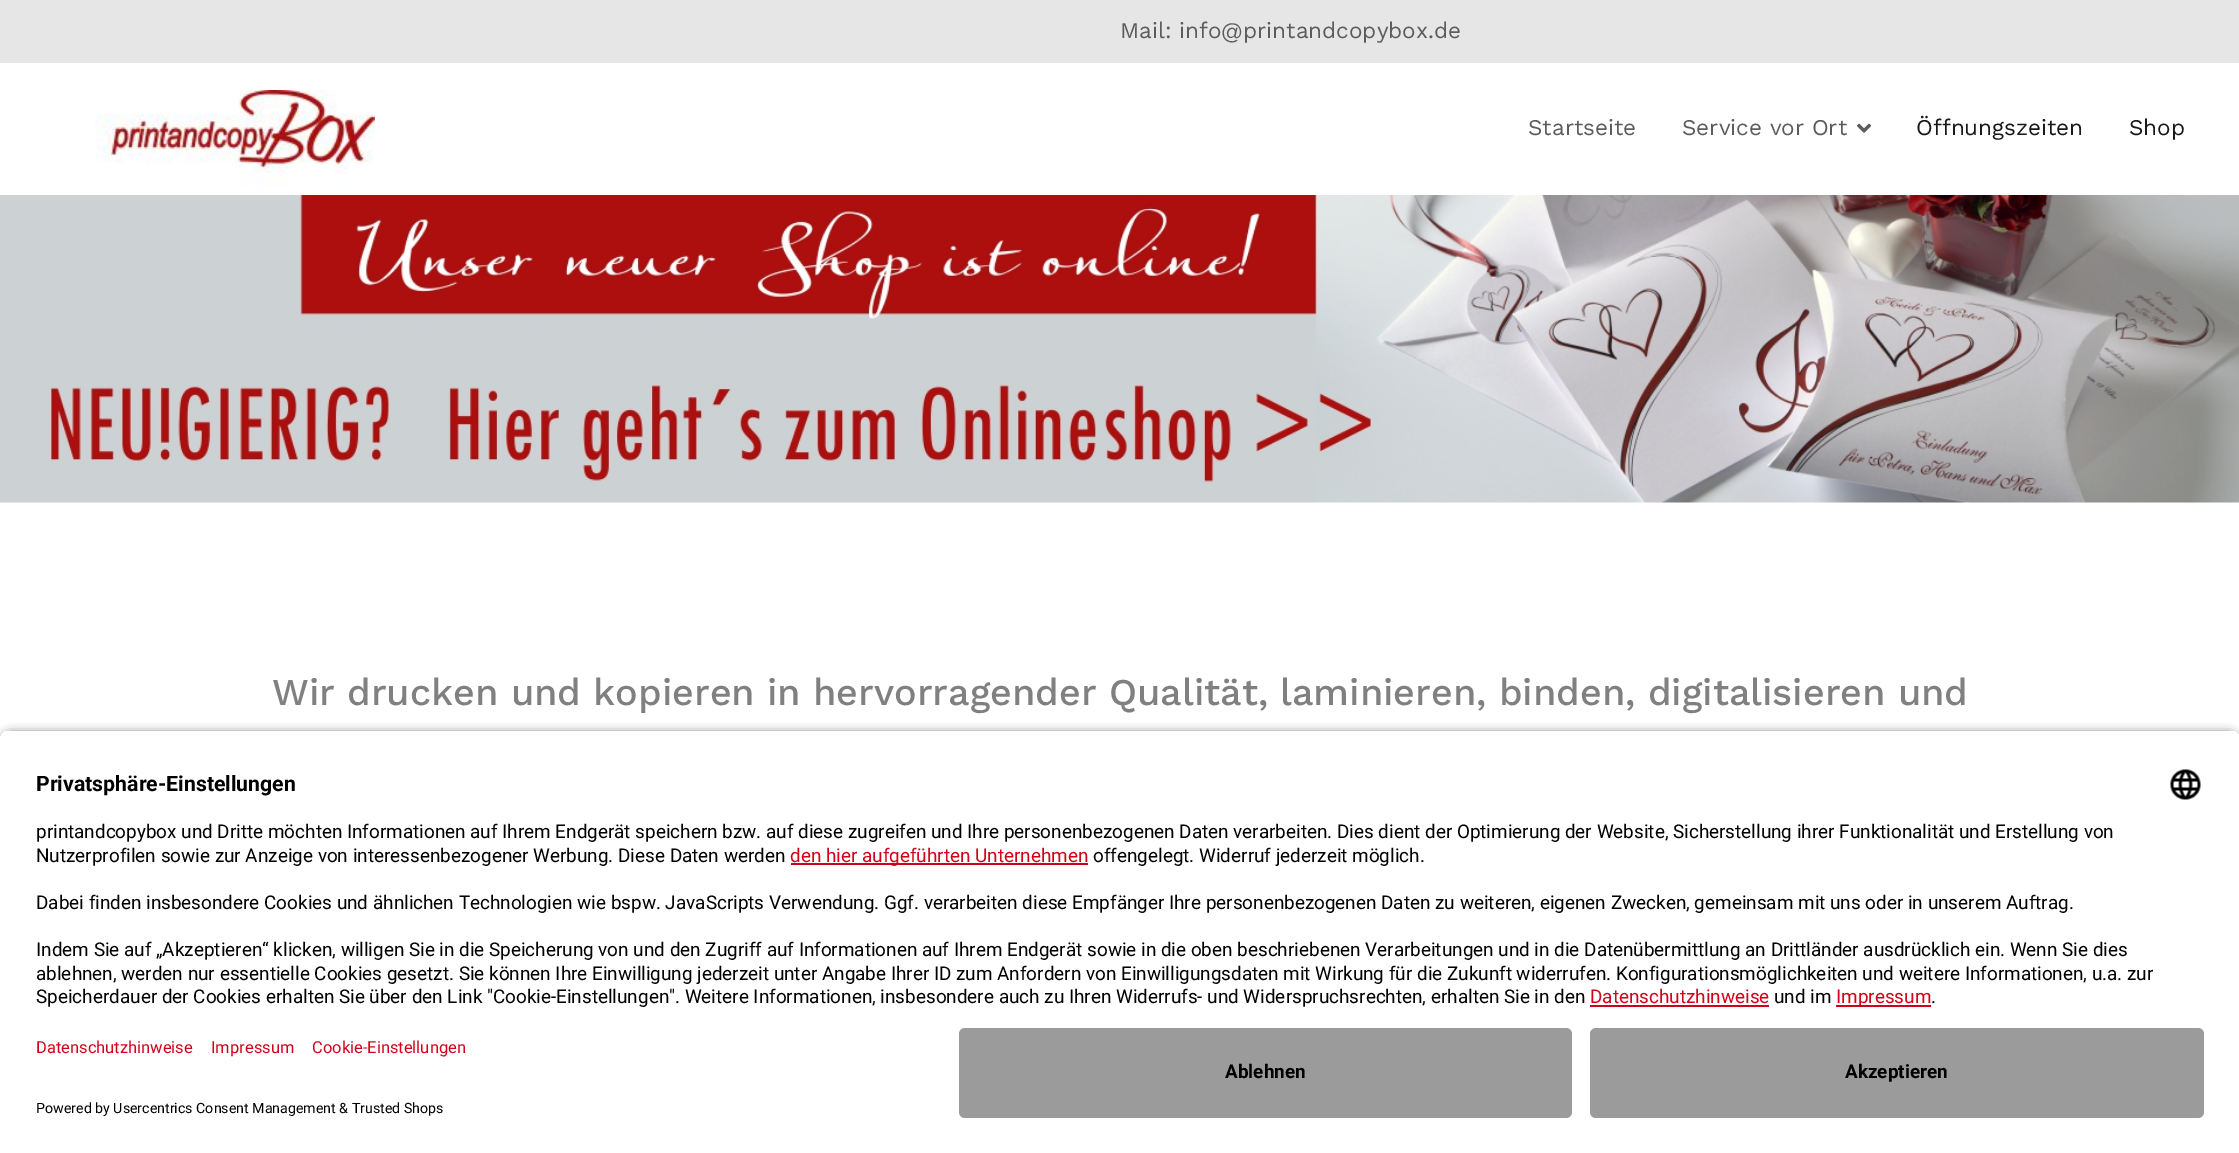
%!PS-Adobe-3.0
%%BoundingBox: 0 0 2239 1153
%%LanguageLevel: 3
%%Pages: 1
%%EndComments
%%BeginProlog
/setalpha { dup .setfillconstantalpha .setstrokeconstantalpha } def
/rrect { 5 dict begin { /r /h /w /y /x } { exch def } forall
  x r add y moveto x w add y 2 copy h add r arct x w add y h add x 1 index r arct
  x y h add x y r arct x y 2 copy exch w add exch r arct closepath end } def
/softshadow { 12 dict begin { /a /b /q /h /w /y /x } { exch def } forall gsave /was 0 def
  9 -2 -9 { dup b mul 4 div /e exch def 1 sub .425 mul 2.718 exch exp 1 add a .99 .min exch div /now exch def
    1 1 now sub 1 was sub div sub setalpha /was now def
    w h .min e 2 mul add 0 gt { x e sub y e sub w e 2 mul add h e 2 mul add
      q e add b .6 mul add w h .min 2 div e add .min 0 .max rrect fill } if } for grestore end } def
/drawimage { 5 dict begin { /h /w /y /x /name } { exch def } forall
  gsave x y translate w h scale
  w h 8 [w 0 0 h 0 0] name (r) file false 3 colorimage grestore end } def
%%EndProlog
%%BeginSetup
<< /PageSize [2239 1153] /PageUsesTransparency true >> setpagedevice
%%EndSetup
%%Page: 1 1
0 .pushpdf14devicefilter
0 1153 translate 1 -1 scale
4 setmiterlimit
1 setgray
0 0 2239 1153 rectfill
(images/1.raw) 95 90 280 96 drawimage
0.902 setgray
0 0 2239 63 rectfill
(images/2.raw) 1857 123 14 10 drawimage
(images/3.raw) 0 195 2239 308 drawimage
0 setgray
0 734 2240 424 12 5 0.8 softshadow
gsave
newpath 12 729 moveto 2228 729 lineto 2234.5 729 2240 734.5 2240 741 curveto 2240 1016 lineto 0 1016 lineto 0 741 lineto 0 734.5 5.5 729 12 729 curveto closepath clip newpath
1 setgray
0 731 2239 285 rectfill
grestore
(images/4.raw) 2170 769 31 31 drawimage
0.816 0.008 0.106 setrgbcolor
791 863 297 2 rectfill
1590 1005 179 2 rectfill
1836 1005 95 2 rectfill
1 setgray
0 1016 2239 137 rectfill
0.608 setgray
959 1028 613 90 6 rrect fill
1590 1028 614 90 6 rrect fill
/WorkSans-Regular [22.5 0 0 -22.5 0 0] selectfont
0.357 0.365 0.361 setrgbcolor
1120 38 moveto (Mail: info@printandcopybox.de) show
1528 135 moveto (Startseite) show
1682 135 moveto (Service vor Ort) show
0.086 0.094 0.102 setrgbcolor
1916 135 moveto (Öffnungszeiten) show
2129 135 moveto (Shop) show
/WorkSans-Medium [37.8 0 0 -37.8 0 0] selectfont
0.502 setgray
272 705 moveto (Wir drucken und kopieren in hervorragender Qualität, laminieren, binden, digitalisieren und) show
/Roboto-Bold [21.25 0 0 -21.25 0 0] selectfont
0 setgray
36 791 moveto (Privatsphäre-Einstellungen) show
/Roboto-Regular [18.9 0 0 -18.9 0 0] selectfont
36 838 moveto (printandcopybox und Dritte möchten Informationen auf Ihrem Endgerät speichern bzw. auf diese zugreifen und Ihre personenbezogenen Daten verarbeiten. Dies dient der Optimierung der Website, Sicherstellung ihrer Funktionalität und Erstellung von) show
36 862 moveto (Nutzerprofilen sowie zur Anzeige von interessenbezogener Werbung. Diese Daten werden) show
0.816 0.008 0.106 setrgbcolor
790 862 moveto (den hier aufgeführten Unternehmen) show
0 setgray
1093 862 moveto (offengelegt. Widerruf jederzeit möglich.) show
36 909 moveto (Dabei finden insbesondere Cookies und ähnlichen Technologien wie bspw. JavaScripts Verwendung. Ggf. verarbeiten diese Empfänger Ihre personenbezogenen Daten zu weiteren, eigenen Zwecken, gemeinsam mit uns oder in unserem Auftrag.) show
36 956 moveto (Indem Sie auf „Akzeptieren“ klicken, willigen Sie in die Speicherung von und den Zugriff auf Informationen auf Ihrem Endgerät sowie in die oben beschriebenen Verarbeitungen und in die Datenübermittlung an Drittländer ausdrücklich ein. Wenn Sie dies) show
36 980 moveto (ablehnen, werden nur essentielle Cookies gesetzt. Sie können Ihre Einwilligung jederzeit unter Angabe Ihrer ID zum Anfordern von Einwilligungsdaten mit Wirkung für die Zukunft widerrufen. Konfigurationsmöglichkeiten und weitere Informationen, u.a. zur) show
36 1003 moveto (Speicherdauer der Cookies erhalten Sie über den Link "Cookie-Einstellungen". Weitere Informationen, insbesondere auch zu Ihren Widerrufs- und Widerspruchsrechten, erhalten Sie in den) show
0.816 0.008 0.106 setrgbcolor
1590 1003 moveto (Datenschutzhinweise) show
0 setgray
1774 1003 moveto (und im) show
0.816 0.008 0.106 setrgbcolor
1836 1003 moveto (Impressum) show
0 setgray
1931 1003 moveto (.) show
/Roboto-Regular [16.5 0 0 -16.5 0 0] selectfont
0.816 0.008 0.106 setrgbcolor
36 1053 moveto (Datenschutzhinweise) show
211 1053 moveto (Impressum) show
312 1053 moveto (Cookie-Einstellungen) show
/Roboto-Regular [14.2 0 0 -14.2 0 0] selectfont
0 setgray
36 1113 moveto (Powered by Usercentrics Consent Management & Trusted Shops) show
/Roboto-Bold [18.9 0 0 -18.9 0 0] selectfont
1225 1078 moveto (Ablehnen) show
1845 1078 moveto (Akzeptieren) show
.poppdf14devicefilter showpage
%%EOF
